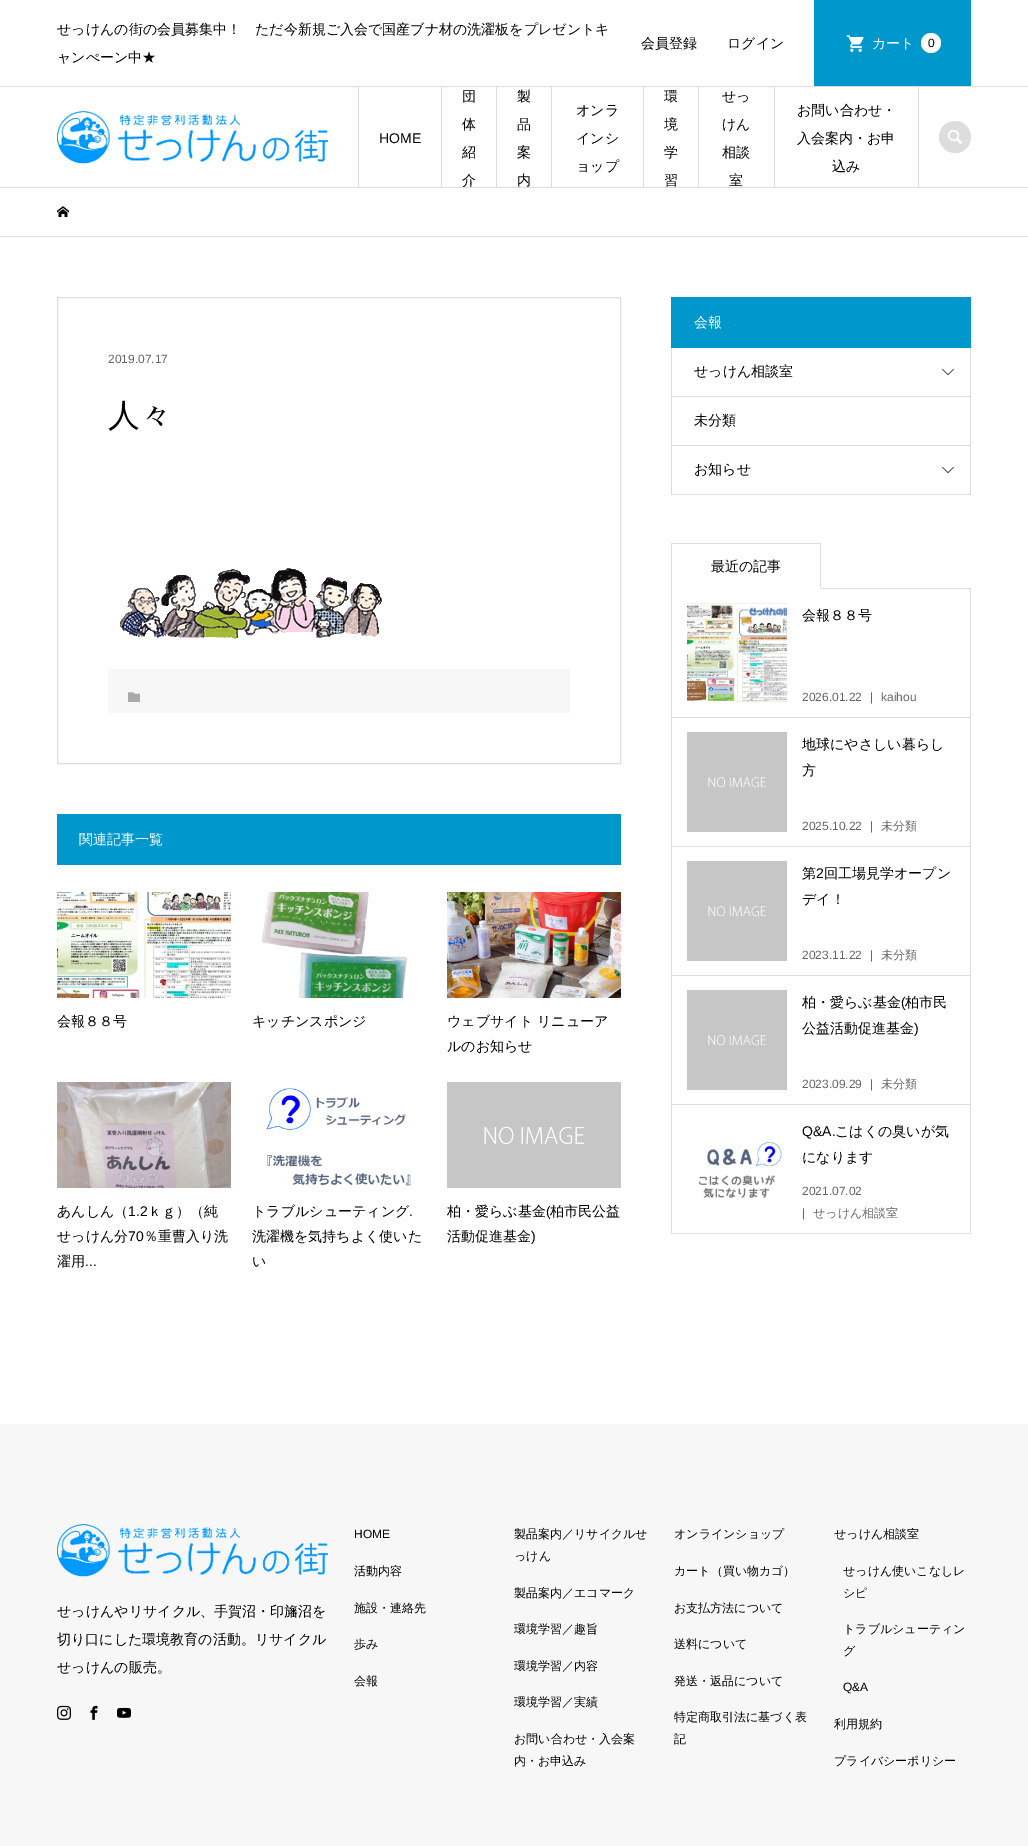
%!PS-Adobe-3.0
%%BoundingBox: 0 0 1028 1846
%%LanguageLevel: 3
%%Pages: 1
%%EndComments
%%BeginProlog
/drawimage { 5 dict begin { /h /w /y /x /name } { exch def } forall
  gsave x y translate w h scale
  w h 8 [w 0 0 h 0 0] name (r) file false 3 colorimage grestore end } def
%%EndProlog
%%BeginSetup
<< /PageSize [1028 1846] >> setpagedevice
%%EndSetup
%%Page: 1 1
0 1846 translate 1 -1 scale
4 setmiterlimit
1 setgray
0 0 1028 1846 rectfill
0.867 setgray
0 86 1028 1 rectfill
0 0.592 0.8 setrgbcolor
814 0 157 86 rectfill
(images/1.raw) 846 35 18 17 drawimage
1 setgray
newpath 931 43 10 0 360 arc closepath fill
0.867 setgray
0 187 1028 1 rectfill
(images/2.raw) 57 111 271 53 drawimage
358 87 1 100 rectfill
441 87 1 101 rectfill
496 87 1 101 rectfill
551 87 1 101 rectfill
643 87 1 101 rectfill
698 87 1 101 rectfill
774 87 1 101 rectfill
918 87 1 101 rectfill
newpath 955 137 16 0 360 arc closepath fill
(images/3.raw) 948 129 14 15 drawimage
0 236 1028 1 rectfill
(images/4.raw) 57 206 12 11 drawimage
57.5 297.5 563 466 rectstroke
(images/5.raw) 120 568 262 71 drawimage
0.969 setgray
108 669 462 44 rectfill
(images/6.raw) 128 692 12 10 drawimage
0 0.592 0.8 setrgbcolor
57 814 564 51 rectfill
(images/7.raw) 57 892 174 106 drawimage
(images/8.raw) 262 892 146 106 drawimage
(images/9.raw) 447 892 174 106 drawimage
(images/10.raw) 57 1082 174 106 drawimage
(images/11.raw) 266 1088 145 98 drawimage
(images/12.raw) 447 1082 174 106 drawimage
0.867 setgray
970 347 1 148 rectfill
671 494 300 1 rectfill
671 347 1 148 rectfill
0 0.592 0.8 setrgbcolor
671 297 300 51 rectfill
(images/13.raw) 942 368 12 8 drawimage
0.867 setgray
672 396 298 1 rectfill
672 445 298 1 rectfill
(images/13.raw) 942 466 12 8 drawimage
671 543 1 46 rectfill
672 543 149 1 rectfill
820 543 1 46 rectfill
1 setgray
820 588 1 1 rectfill
0.867 setgray
821 588 150 1 rectfill
970 589 1 645 rectfill
671 717 300 1 rectfill
671 589 1 129 rectfill
(images/14.raw) 687 603 100 100 drawimage
671 846 300 1 rectfill
671 718 1 129 rectfill
(images/15.raw) 687 732 100 100 drawimage
671 975 300 1 rectfill
671 847 1 129 rectfill
(images/15.raw) 687 861 100 100 drawimage
671 1104 300 1 rectfill
671 976 1 129 rectfill
(images/15.raw) 687 990 100 100 drawimage
671 1233 300 1 rectfill
671 1105 1 129 rectfill
(images/16.raw) 698 1141 85 57 drawimage
0.969 setgray
0 1424 1028 422 rectfill
(images/17.raw) 57 1524 271 53 drawimage
(images/18.raw) 57 1705 14 15 drawimage
(images/19.raw) 90 1705 8 15 drawimage
(images/20.raw) 117 1707 14 11 drawimage
/WenQuanYiZenHei-Medium [14 0 0 -14 0 0] selectfont
0 setgray
57 34 moveto (せっけんの街の会員募集中！　ただ今新規ご入会で国産ブナ材の洗濯板をプレゼントキ) show
57 62 moveto (ャンぺーン中★) show
641 48 moveto (会員登録) show
727 48 moveto (ログイン) show
1 setgray
872 48 moveto (カート) show
/LiberationSans-Regular [12 0 0 -12 0 0] selectfont
0 setgray
928 47 moveto (0) show
/LiberationSans-Regular [14 0 0 -14 0 0] selectfont
379 143 moveto (HOME) show
/WenQuanYiZenHei-Medium [14 0 0 -14 0 0] selectfont
462 101 moveto (団) show
462 129 moveto (体) show
462 157 moveto (紹) show
462 185 moveto (介) show
517 101 moveto (製) show
517 129 moveto (品) show
517 157 moveto (案) show
517 185 moveto (内) show
576 115 moveto (オンラ) show
576 143 moveto (インシ) show
576 171 moveto (ョップ) show
664 101 moveto (環) show
664 129 moveto (境) show
664 157 moveto (学) show
664 185 moveto (習) show
722 101 moveto (せっ) show
722 129 moveto (けん) show
722 157 moveto (相談) show
729 185 moveto (室) show
797 115 moveto (お問い合わせ・) show
797 143 moveto (入会案内・お申) show
832 171 moveto (込み) show
/LiberationSans-Regular [12 0 0 -12 0 0] selectfont
0.4 setgray
108 363 moveto (2019.07.17) show
/WenQuanYiZenHei-Medium [32 0 0 -32 0 0] selectfont
0 setgray
108 426 moveto (人々) show
/WenQuanYiZenHei-Medium [14 0 0 -14 0 0] selectfont
1 setgray
79 844 moveto (関連記事一覧) show
0 setgray
57 1026 moveto (会報８８号) show
252 1026 moveto (キッチンスポンジ) show
447 1026 moveto (ウェブサイト リニューア) show
447 1051 moveto (ルのお知らせ) show
57 1216 moveto (あんしん（) show
/LiberationSans-Regular [14 0 0 -14 0 0] selectfont
128 1216 moveto (1.2) show
/WenQuanYiZenHei-Medium [14 0 0 -14 0 0] selectfont
148 1216 moveto (ｋｇ）（純) show
57 1241 moveto (せっけん分) show
/LiberationSans-Regular [14 0 0 -14 0 0] selectfont
128 1241 moveto (70) show
/WenQuanYiZenHei-Medium [14 0 0 -14 0 0] selectfont
144 1241 moveto (％重曹入り洗) show
57 1266 moveto (濯用) show
/LiberationSans-Regular [14 0 0 -14 0 0] selectfont
85 1266 moveto (...) show
/WenQuanYiZenHei-Medium [14 0 0 -14 0 0] selectfont
252 1216 moveto (トラブルシューティング) show
/LiberationSans-Regular [14 0 0 -14 0 0] selectfont
409 1216 moveto (.) show
/WenQuanYiZenHei-Medium [14 0 0 -14 0 0] selectfont
252 1241 moveto (洗濯機を気持ちよく使いた) show
252 1266 moveto (い) show
447 1216 moveto (柏・愛らぶ基金) show
/LiberationSans-Regular [14 0 0 -14 0 0] selectfont
546 1216 moveto (\() show
/WenQuanYiZenHei-Medium [14 0 0 -14 0 0] selectfont
550 1216 moveto (柏市民公益) show
447 1241 moveto (活動促進基金) show
/LiberationSans-Regular [14 0 0 -14 0 0] selectfont
531 1241 moveto (\)) show
/WenQuanYiZenHei-Medium [14 0 0 -14 0 0] selectfont
1 setgray
694 327 moveto (会報) show
0 setgray
694 376 moveto (せっけん相談室) show
694 425 moveto (未分類) show
694 474 moveto (お知らせ) show
711 571 moveto (最近の記事) show
802 620 moveto (会報８８号) show
/LiberationSans-Regular [12 0 0 -12 0 0] selectfont
0.4 setgray
802 701 moveto (2026.01.22) show
870 701 moveto (|) show
881 701 moveto (kaihou) show
/WenQuanYiZenHei-Medium [14 0 0 -14 0 0] selectfont
0 setgray
802 749 moveto (地球にやさしい暮らし) show
802 775 moveto (方) show
/LiberationSans-Regular [12 0 0 -12 0 0] selectfont
0.4 setgray
802 830 moveto (2025.10.22) show
870 830 moveto (|) show
/WenQuanYiZenHei-Medium [12 0 0 -12 0 0] selectfont
881 830 moveto (未分類) show
/WenQuanYiZenHei-Medium [14 0 0 -14 0 0] selectfont
0 setgray
802 878 moveto (第) show
/LiberationSans-Regular [14 0 0 -14 0 0] selectfont
816 878 moveto (2) show
/WenQuanYiZenHei-Medium [14 0 0 -14 0 0] selectfont
824 878 moveto (回工場見学オープン) show
802 904 moveto (デイ！) show
/LiberationSans-Regular [12 0 0 -12 0 0] selectfont
0.4 setgray
802 959 moveto (2023.11.22) show
870 959 moveto (|) show
/WenQuanYiZenHei-Medium [12 0 0 -12 0 0] selectfont
881 959 moveto (未分類) show
/WenQuanYiZenHei-Medium [14 0 0 -14 0 0] selectfont
0 setgray
802 1007 moveto (柏・愛らぶ基金) show
/LiberationSans-Regular [14 0 0 -14 0 0] selectfont
901 1007 moveto (\() show
/WenQuanYiZenHei-Medium [14 0 0 -14 0 0] selectfont
905 1007 moveto (柏市民) show
802 1033 moveto (公益活動促進基金) show
/LiberationSans-Regular [14 0 0 -14 0 0] selectfont
914 1033 moveto (\)) show
/LiberationSans-Regular [12 0 0 -12 0 0] selectfont
0.4 setgray
802 1088 moveto (2023.09.29) show
870 1088 moveto (|) show
/WenQuanYiZenHei-Medium [12 0 0 -12 0 0] selectfont
881 1088 moveto (未分類) show
/LiberationSans-Regular [14 0 0 -14 0 0] selectfont
0 setgray
802 1136 moveto (Q&A.) show
/WenQuanYiZenHei-Medium [14 0 0 -14 0 0] selectfont
835 1136 moveto (こはくの臭いが気) show
802 1162 moveto (になります) show
/LiberationSans-Regular [12 0 0 -12 0 0] selectfont
0.4 setgray
802 1195 moveto (2021.07.02) show
802 1217 moveto (|) show
/WenQuanYiZenHei-Medium [12 0 0 -12 0 0] selectfont
813 1217 moveto (せっけん相談室) show
/WenQuanYiZenHei-Medium [14 0 0 -14 0 0] selectfont
0 setgray
57 1616 moveto (せっけんやリサイクル、手賀沼・印旛沼を) show
57 1644 moveto (切り口にした環境教育の活動。リサイクル) show
57 1672 moveto (せっけんの販売。) show
/LiberationSans-Regular [12 0 0 -12 0 0] selectfont
354 1538 moveto (HOME) show
/WenQuanYiZenHei-Medium [12 0 0 -12 0 0] selectfont
354 1575 moveto (活動内容) show
354 1612 moveto (施設・連絡先) show
354 1648 moveto (歩み) show
354 1685 moveto (会報) show
514 1538 moveto (製品案内／リサイクルせ) show
514 1560 moveto (っけん) show
514 1597 moveto (製品案内／エコマーク) show
514 1633 moveto (環境学習／趣旨) show
514 1670 moveto (環境学習／内容) show
514 1706 moveto (環境学習／実績) show
514 1743 moveto (お問い合わせ・入会案) show
514 1765 moveto (内・お申込み) show
674 1538 moveto (オンラインショップ) show
674 1575 moveto (カート（買い物カゴ）) show
674 1612 moveto (お支払方法について) show
674 1648 moveto (送料について) show
674 1685 moveto (発送・返品について) show
674 1721 moveto (特定商取引法に基づく表) show
674 1743 moveto (記) show
834 1538 moveto (せっけん相談室) show
843 1575 moveto (せっけん使いこなしレ) show
843 1597 moveto (シピ) show
843 1633 moveto (トラブルシューティン) show
843 1655 moveto (グ) show
/LiberationSans-Regular [12 0 0 -12 0 0] selectfont
843 1691 moveto (Q&A) show
/WenQuanYiZenHei-Medium [12 0 0 -12 0 0] selectfont
834 1728 moveto (利用規約) show
834 1765 moveto (プライバシーポリシー) show
showpage
%%EOF
